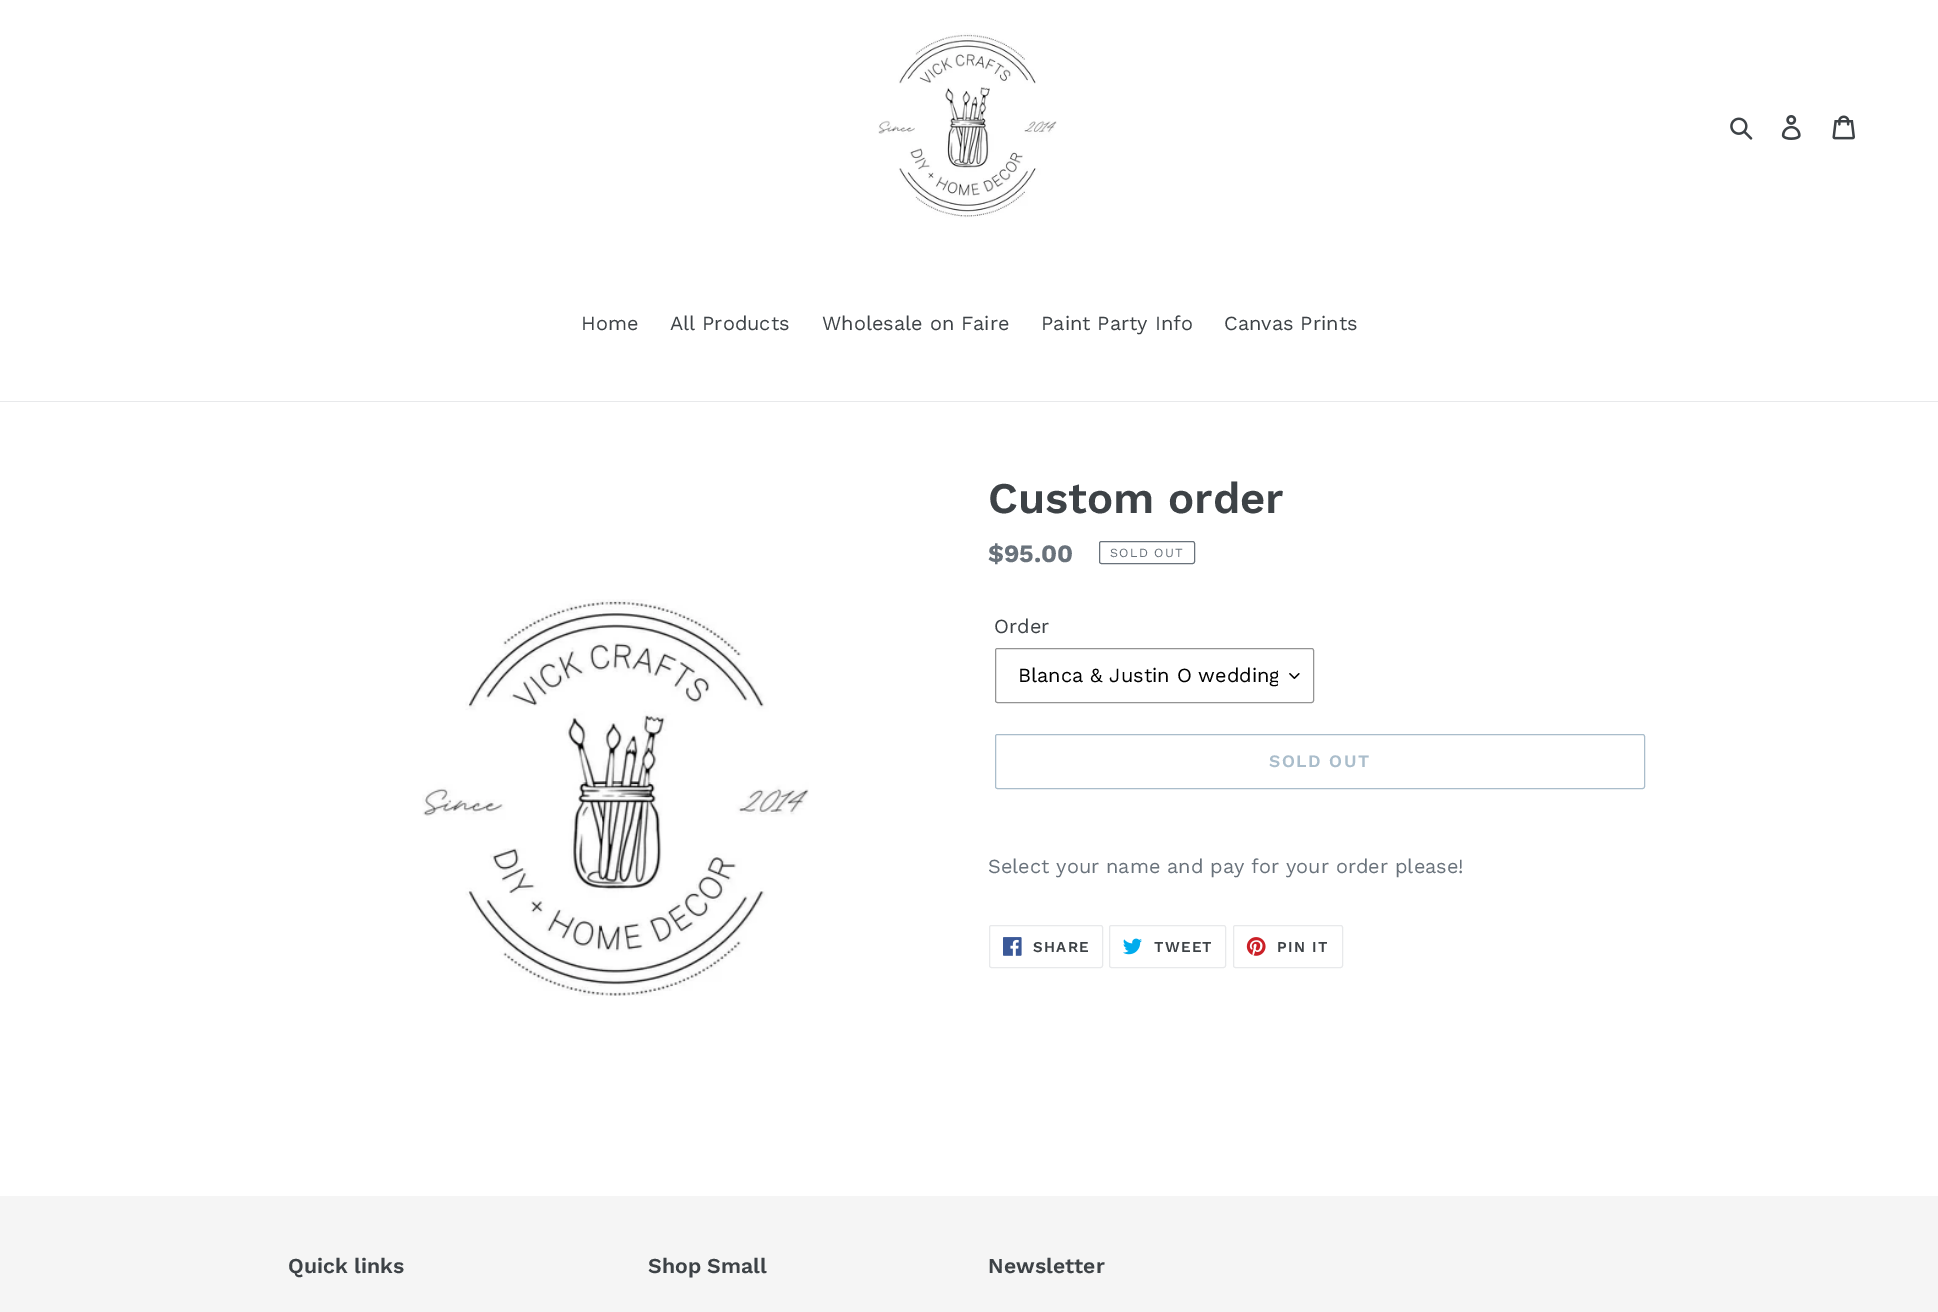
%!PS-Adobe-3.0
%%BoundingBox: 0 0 1938 1312
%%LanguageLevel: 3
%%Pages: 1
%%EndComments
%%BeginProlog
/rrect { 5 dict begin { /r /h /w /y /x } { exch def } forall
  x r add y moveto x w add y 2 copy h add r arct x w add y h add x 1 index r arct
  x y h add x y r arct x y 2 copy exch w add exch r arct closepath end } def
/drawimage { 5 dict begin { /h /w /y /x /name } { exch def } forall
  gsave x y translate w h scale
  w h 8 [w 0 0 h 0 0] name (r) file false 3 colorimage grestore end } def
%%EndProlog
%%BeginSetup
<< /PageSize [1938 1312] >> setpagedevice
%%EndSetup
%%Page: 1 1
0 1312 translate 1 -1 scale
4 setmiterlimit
1 setgray
0 0 1938 1312 rectfill
(images/1.raw) 878 32 179 186 drawimage
(images/2.raw) 1730 117 23 23 drawimage
(images/3.raw) 1781 115 20 25 drawimage
(images/4.raw) 1832 115 23 25 drawimage
0.91 0.914 0.922 setrgbcolor
0 401 1938 1 rectfill
(images/5.raw) 422 599 387 397 drawimage
0.412 0.447 0.482 setrgbcolor
1099.5 541.5 95 22 2 rrect stroke
(images/6.raw) 1289 673 11 6 drawimage
0.58 setgray
995.5 648.5 318 54 2 rrect stroke
0.667 0.741 0.796 setrgbcolor
995.5 734.5 649 54 2 rrect stroke
0.91 0.914 0.922 setrgbcolor
989.5 925.5 113 42 2 rrect stroke
(images/7.raw) 1003 937 19 19 drawimage
1109.5 925.5 116 42 2 rrect stroke
(images/8.raw) 1123 938 19 17 drawimage
1233.5 925.5 109 42 2 rrect stroke
(images/9.raw) 1246 937 20 19 drawimage
0.961 setgray
0 1196 1938 116 rectfill
/WorkSans-Regular [20 0 0 -20 0 0] selectfont
0.239 0.259 0.275 setrgbcolor
581 330 moveto (Home) show
670 330 moveto (All Products) show
822 330 moveto (Wholesale on Faire) show
1041 330 moveto (Paint Party Info) show
1224 330 moveto (Canvas Prints) show
/WorkSans-SemiBold [43.75 0 0 -43.75 0 0] selectfont
988 513 moveto (Custom order) show
/WorkSans-Bold [25 0 0 -25 0 0] selectfont
0.412 0.447 0.482 setrgbcolor
988 562 moveto ($95.00) show
/WorkSans-Regular [12.5 0 0 -12.5 0 0] selectfont
1110 557 moveto 1.25 0 (SOLD OUT) ashow
/WorkSans-Regular [20 0 0 -20 0 0] selectfont
0.239 0.259 0.275 setrgbcolor
994 633 moveto (Order) show
gsave
1019 664 259 24 rectclip
0 setgray
1018 682 moveto (Blanca & Justin O wedding) show
grestore
/WorkSans-SemiBold [17.5 0 0 -17.5 0 0] selectfont
0.667 0.741 0.796 setrgbcolor
1269 767 moveto 1.5 0 (SOLD OUT) ashow
/WorkSans-Regular [20 0 0 -20 0 0] selectfont
0.412 0.447 0.482 setrgbcolor
988 873 moveto (Select your name and pay for your order please!) show
/WorkSans-SemiBold [15 0 0 -15 0 0] selectfont
0.239 0.259 0.275 setrgbcolor
1033 952 moveto 1.25 0 (SHARE) ashow
1154 952 moveto 1.25 0 (TWEET) ashow
1277 952 moveto 1.25 0 (PIN IT) ashow
/WorkSans-SemiBold [21.25 0 0 -21.25 0 0] selectfont
288 1273 moveto (Quick links) show
648 1273 moveto (Shop Small) show
988 1273 moveto (Newsletter) show
showpage
%%EOF
